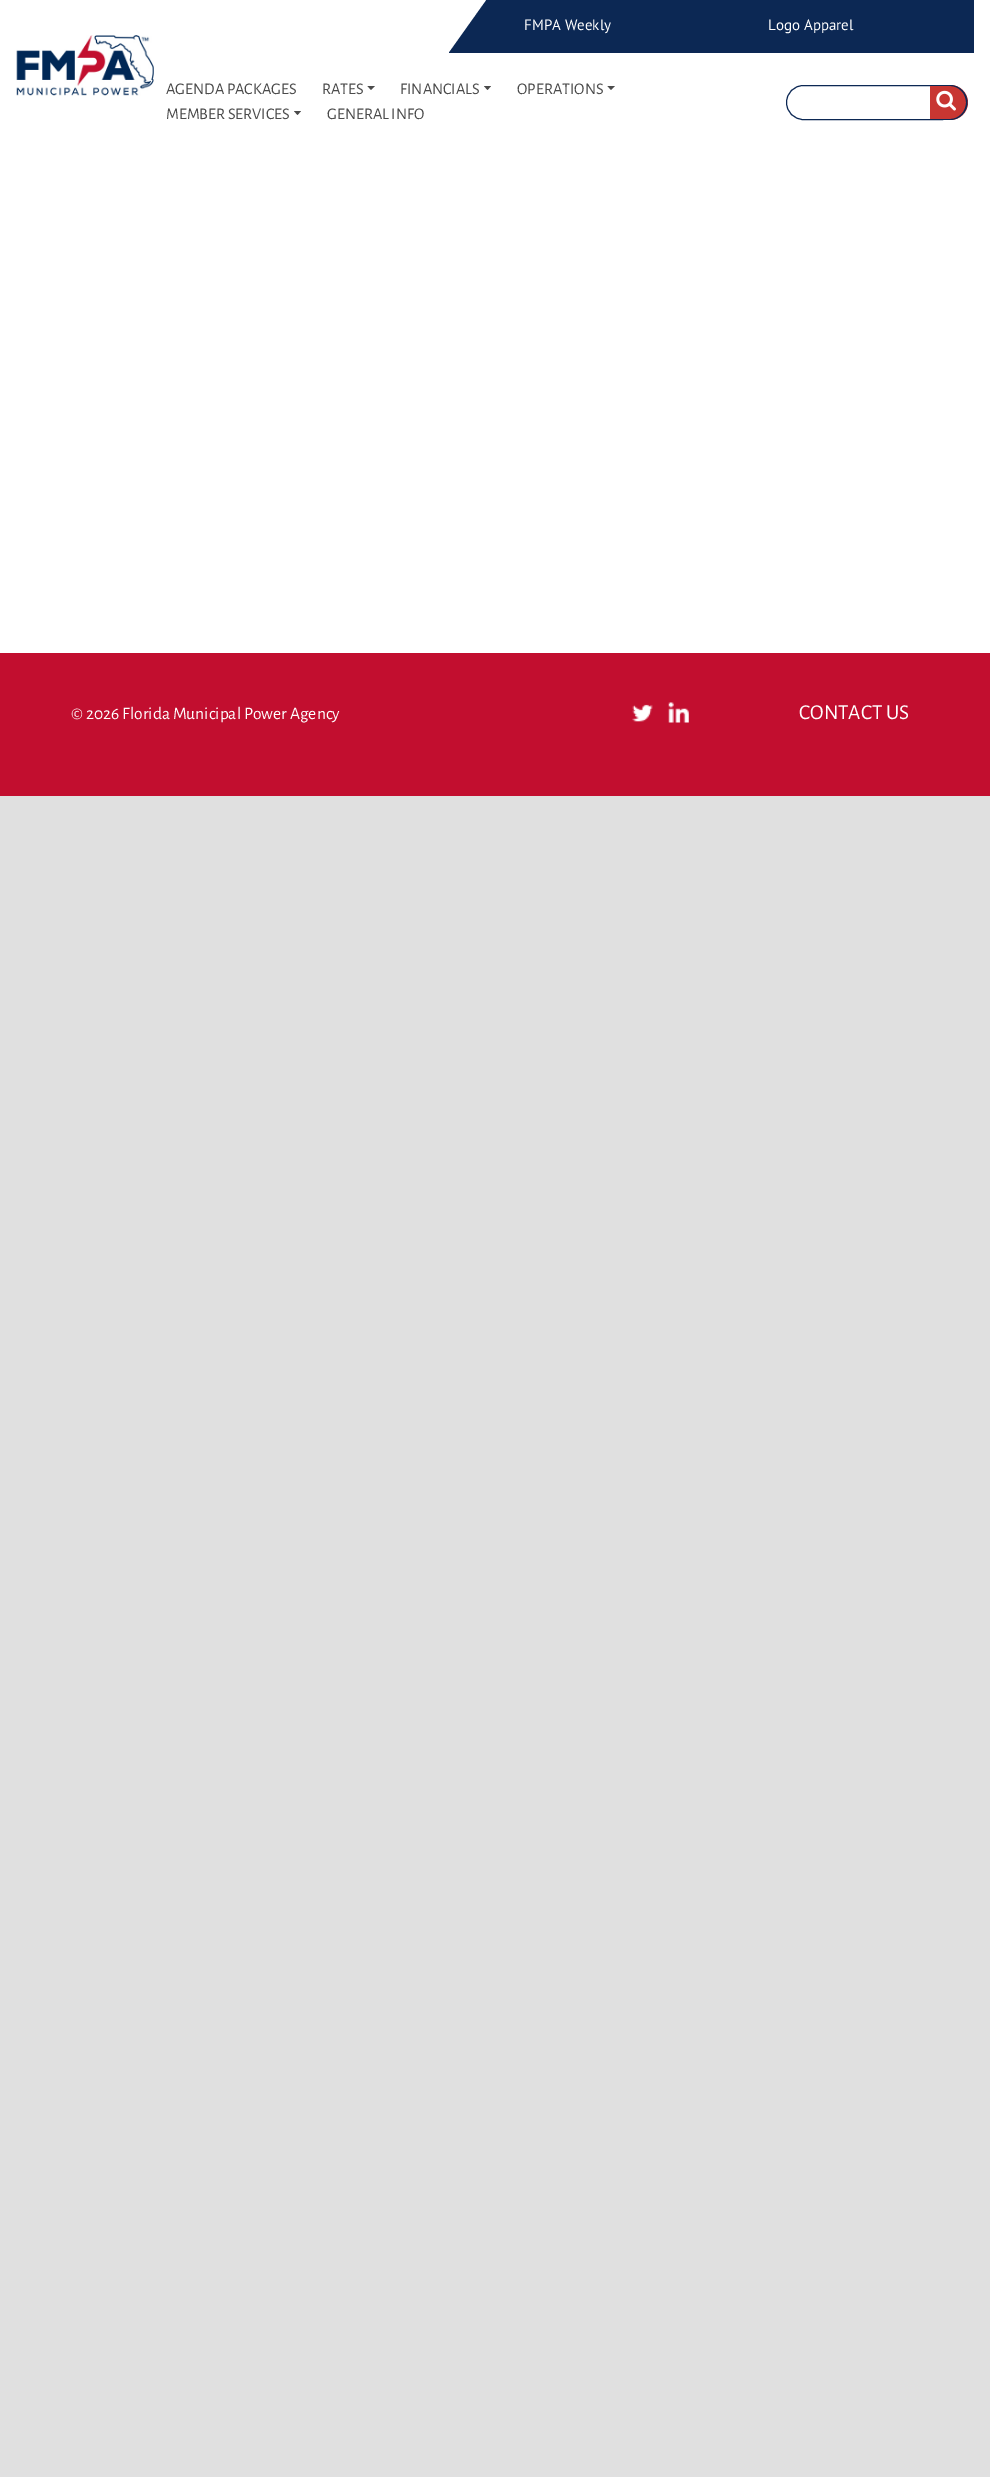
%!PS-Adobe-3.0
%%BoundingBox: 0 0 990 2477
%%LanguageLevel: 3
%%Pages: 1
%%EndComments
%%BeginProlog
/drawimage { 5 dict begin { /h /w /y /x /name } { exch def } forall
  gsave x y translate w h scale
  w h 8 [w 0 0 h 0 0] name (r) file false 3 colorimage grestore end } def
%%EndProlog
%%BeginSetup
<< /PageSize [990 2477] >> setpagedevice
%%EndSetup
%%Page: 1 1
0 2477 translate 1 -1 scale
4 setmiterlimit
0.878 setgray
0 0 990 2477 rectfill
1 setgray
0 0 990 653 rectfill
(images/1.raw) 16 35 138 61 drawimage
0.047 0.157 0.329 setrgbcolor
449 0 525 53 rectfill
1 setgray
newpath 449 52 moveto 449 0 lineto 486 0 lineto closepath fill
0.294 setgray
newpath 367.5 86 moveto 375 86 lineto 371 90 lineto closepath fill
newpath 484 86 moveto 491 86 lineto 487.5 90 lineto closepath fill
newpath 607.5 86 moveto 615 86 lineto 611 90 lineto closepath fill
newpath 294 111 moveto 301 111 lineto 297.5 115 lineto closepath fill
0.047 0.157 0.329 setrgbcolor
newpath 803.5 85.5 moveto 942.5 85.5 lineto 942.5 119.5 lineto 803.5 119.5 lineto 794 119.5 786.5 112 786.5 102.5 curveto 786.5 93 794 85.5 803.5 85.5 curveto closepath stroke
0.784 0.212 0.196 setrgbcolor
newpath 930 85 moveto 950.5 85 lineto 960 85 968 93 968 102.5 curveto 968 112 960 120 950.5 120 curveto 930 120 lineto closepath fill
0.047 0.157 0.329 setrgbcolor
newpath 930 85 moveto 950 85 lineto 959.5 85 967.5 93 967.5 102.5 curveto 967.5 112 959.5 120 950 120 curveto 930 120 lineto closepath 930 86 moveto 950 86 lineto 959 86 966 93.5 966 102.5 curveto 966 111.5 959 119 950 119 curveto 930 119 lineto closepath eofill
(images/2.raw) 936 90 20 21 drawimage
0.761 0.055 0.184 setrgbcolor
0 653 990 143 rectfill
(images/3.raw) 632 704 21 18 drawimage
(images/4.raw) 668 702 21 21 drawimage
/PTSans-Regular [15 0 0 -15 0 0] selectfont
1 setgray
524 30 moveto (FMPA Weekly) show
768 30 moveto (Logo Apparel) show
/AlegreyaSans-Regular [16.25 0 0 -16.25 0 0] selectfont
0.294 setgray
166 94 moveto (AGENDA PACKAGES) show
322 94 moveto (RATES) show
400 94 moveto (FINANCIALS) show
517 94 moveto (OPERATIONS) show
166 119 moveto (MEMBER SERVICES) show
327 119 moveto (GENERAL INFO) show
/AlegreyaSans-Regular [17.5 0 0 -17.5 0 0] selectfont
1 setgray
71 719 moveto (© 2026 Florida Municipal Power Agency) show
/AlegreyaSans-Regular [21.25 0 0 -21.25 0 0] selectfont
799 719 moveto (CONTACT US) show
showpage
%%EOF
